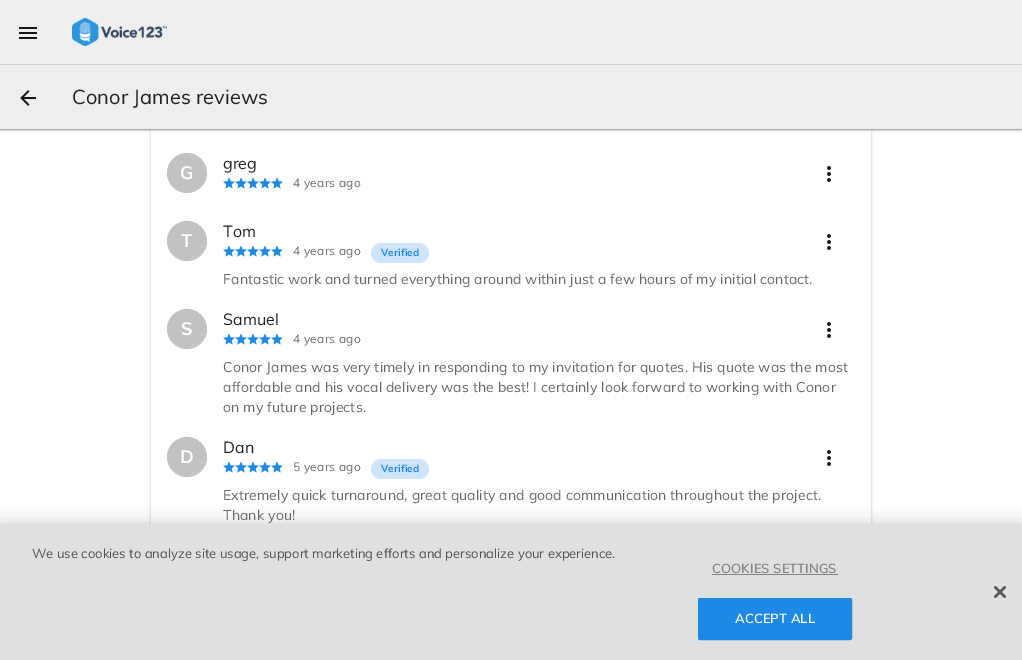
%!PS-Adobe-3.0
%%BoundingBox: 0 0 1022 660
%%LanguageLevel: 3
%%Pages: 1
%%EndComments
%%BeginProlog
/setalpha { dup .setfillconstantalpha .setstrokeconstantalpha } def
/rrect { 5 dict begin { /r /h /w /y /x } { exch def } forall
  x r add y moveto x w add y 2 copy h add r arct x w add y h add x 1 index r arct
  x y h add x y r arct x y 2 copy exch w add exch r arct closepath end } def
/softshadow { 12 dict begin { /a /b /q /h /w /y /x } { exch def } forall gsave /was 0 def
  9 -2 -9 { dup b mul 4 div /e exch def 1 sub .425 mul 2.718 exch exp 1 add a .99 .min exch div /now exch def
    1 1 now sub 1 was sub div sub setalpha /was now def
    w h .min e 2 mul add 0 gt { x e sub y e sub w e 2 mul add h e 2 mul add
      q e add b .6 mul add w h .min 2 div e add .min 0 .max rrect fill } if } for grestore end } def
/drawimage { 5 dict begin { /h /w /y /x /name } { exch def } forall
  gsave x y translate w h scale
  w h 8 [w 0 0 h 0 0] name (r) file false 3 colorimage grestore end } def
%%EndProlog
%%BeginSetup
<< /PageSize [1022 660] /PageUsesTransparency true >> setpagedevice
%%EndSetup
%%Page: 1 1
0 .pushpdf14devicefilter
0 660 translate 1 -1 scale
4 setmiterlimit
1 setgray
0 0 1022 660 rectfill
0 setgray
1 3 1020 127 0 0.5 0.12 softshadow
0 1 1022 129 0 0.5 0.14 softshadow
0 1 1022 129 0 1.5 0.2 softshadow
gsave
newpath 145 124 moveto 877 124 lineto 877 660 lineto 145 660 lineto closepath 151 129 moveto 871 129 lineto 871 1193 lineto 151 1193 lineto closepath eoclip newpath
151 130 720 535 0 1.5 0.2 softshadow
grestore
0.933 setgray
0 0 1022 129 rectfill
(images/1.raw) 19 27 18 12 drawimage
(images/2.raw) 72 18 95 28 drawimage
0.82 setgray
0 64 1022 1 rectfill
(images/3.raw) 20 90 16 16 drawimage
0.761 setgray
newpath 187 173 20 0 360 arc closepath fill
(images/4.raw) 223 177 12 12 drawimage
(images/4.raw) 235 177 12 12 drawimage
(images/4.raw) 247 177 12 12 drawimage
(images/4.raw) 259 177 12 12 drawimage
(images/4.raw) 271 177 12 12 drawimage
(images/5.raw) 827 166 4 16 drawimage
newpath 187 241 20 0 360 arc closepath fill
(images/4.raw) 223 245 12 12 drawimage
(images/4.raw) 235 245 12 12 drawimage
(images/4.raw) 247 245 12 12 drawimage
(images/4.raw) 259 245 12 12 drawimage
(images/4.raw) 271 245 12 12 drawimage
0.808 0.894 0.976 setrgbcolor
371 243 58 20 10 rrect fill
(images/5.raw) 827 234 4 16 drawimage
0.761 setgray
newpath 187 329 20 0 360 arc closepath fill
(images/4.raw) 223 333 12 12 drawimage
(images/4.raw) 235 333 12 12 drawimage
(images/4.raw) 247 333 12 12 drawimage
(images/4.raw) 259 333 12 12 drawimage
(images/4.raw) 271 333 12 12 drawimage
(images/5.raw) 827 322 4 16 drawimage
newpath 187 457 20 0 360 arc closepath fill
(images/4.raw) 223 461 12 12 drawimage
(images/4.raw) 235 461 12 12 drawimage
(images/4.raw) 247 461 12 12 drawimage
(images/4.raw) 259 461 12 12 drawimage
(images/4.raw) 271 461 12 12 drawimage
0.808 0.894 0.976 setrgbcolor
371 459 58 20 10 rrect fill
(images/5.raw) 827 450 4 16 drawimage
0 setgray
0 524 1022 136 0 9 0.2 softshadow
0.878 setgray
0 524 1022 136 rectfill
0.51 setgray
712 574 126 1 rectfill
0.118 0.533 0.898 setrgbcolor
698.5 598.5 153 41 1.5 rrect gsave fill grestore
stroke
(images/6.raw) 994 586 12 12 drawimage
/Muli-Regular [20 0 0 -20 0 0] selectfont
0.129 setgray
72 104 moveto 0.1 0 (Conor James reviews) ashow
/Muli-Bold [18 0 0 -18 0 0] selectfont
1 setgray
180 179 moveto 0.15 0 (G) ashow
/Muli-Regular [16 0 0 -16 0 0] selectfont
0.129 setgray
223 169 moveto (greg) show
/Muli-Regular [12 0 0 -12 0 0] selectfont
0.431 setgray
293 187 moveto 0.25 0 (4 years ago) ashow
/Muli-Bold [18 0 0 -18 0 0] selectfont
1 setgray
181 247 moveto 0.15 0 (T) ashow
/Muli-Regular [16 0 0 -16 0 0] selectfont
0.129 setgray
223 237 moveto (Tom) show
/Muli-Regular [12 0 0 -12 0 0] selectfont
0.431 setgray
293 255 moveto 0.25 0 (4 years ago) ashow
/Muli-Bold [10 0 0 -10 0 0] selectfont
0.118 0.533 0.898 setrgbcolor
381 256 moveto 0.15 0 (Verified) ashow
/Muli-Regular [14 0 0 -14 0 0] selectfont
0.4 setgray
223 284 moveto 0.15 0 (Fantastic work and turned everything around within just a few hours of my initial contact.) ashow
/Muli-Bold [18 0 0 -18 0 0] selectfont
1 setgray
181 335 moveto 0.15 0 (S) ashow
/Muli-Regular [16 0 0 -16 0 0] selectfont
0.129 setgray
223 325 moveto (Samuel) show
/Muli-Regular [12 0 0 -12 0 0] selectfont
0.431 setgray
293 343 moveto 0.25 0 (4 years ago) ashow
/Muli-Regular [14 0 0 -14 0 0] selectfont
0.4 setgray
223 372 moveto 0.15 0 (Conor James was very timely in responding to my invitation for quotes. His quote was the most) ashow
223 392 moveto 0.15 0 (affordable and his vocal delivery was the best! I certainly look forward to working with Conor) ashow
223 412 moveto 0.15 0 (on my future projects.) ashow
/Muli-Bold [18 0 0 -18 0 0] selectfont
1 setgray
180 463 moveto 0.15 0 (D) ashow
/Muli-Regular [16 0 0 -16 0 0] selectfont
0.129 setgray
223 453 moveto (Dan) show
/Muli-Regular [12 0 0 -12 0 0] selectfont
0.431 setgray
293 471 moveto 0.25 0 (5 years ago) ashow
/Muli-Bold [10 0 0 -10 0 0] selectfont
0.118 0.533 0.898 setrgbcolor
381 472 moveto 0.15 0 (Verified) ashow
/Muli-Regular [14 0 0 -14 0 0] selectfont
0.4 setgray
223 500 moveto 0.15 0 (Extremely quick turnaround, great quality and good communication throughout the project.) ashow
223 520 moveto 0.15 0 (Thank you!) ashow
/Muli-Regular [13 0 0 -13 0 0] selectfont
0.31 setgray
32 558 moveto (We use cookies to analyze site usage, support marketing efforts and personalize your experience.) show
/Muli-SemiBold [13 0 0 -13 0 0] selectfont
0.51 setgray
712 573 moveto 0.1 0 (COOKIES SETTINGS) ashow
1 setgray
735 623 moveto 0.1 0 (ACCEPT ALL) ashow
.poppdf14devicefilter showpage
%%EOF
